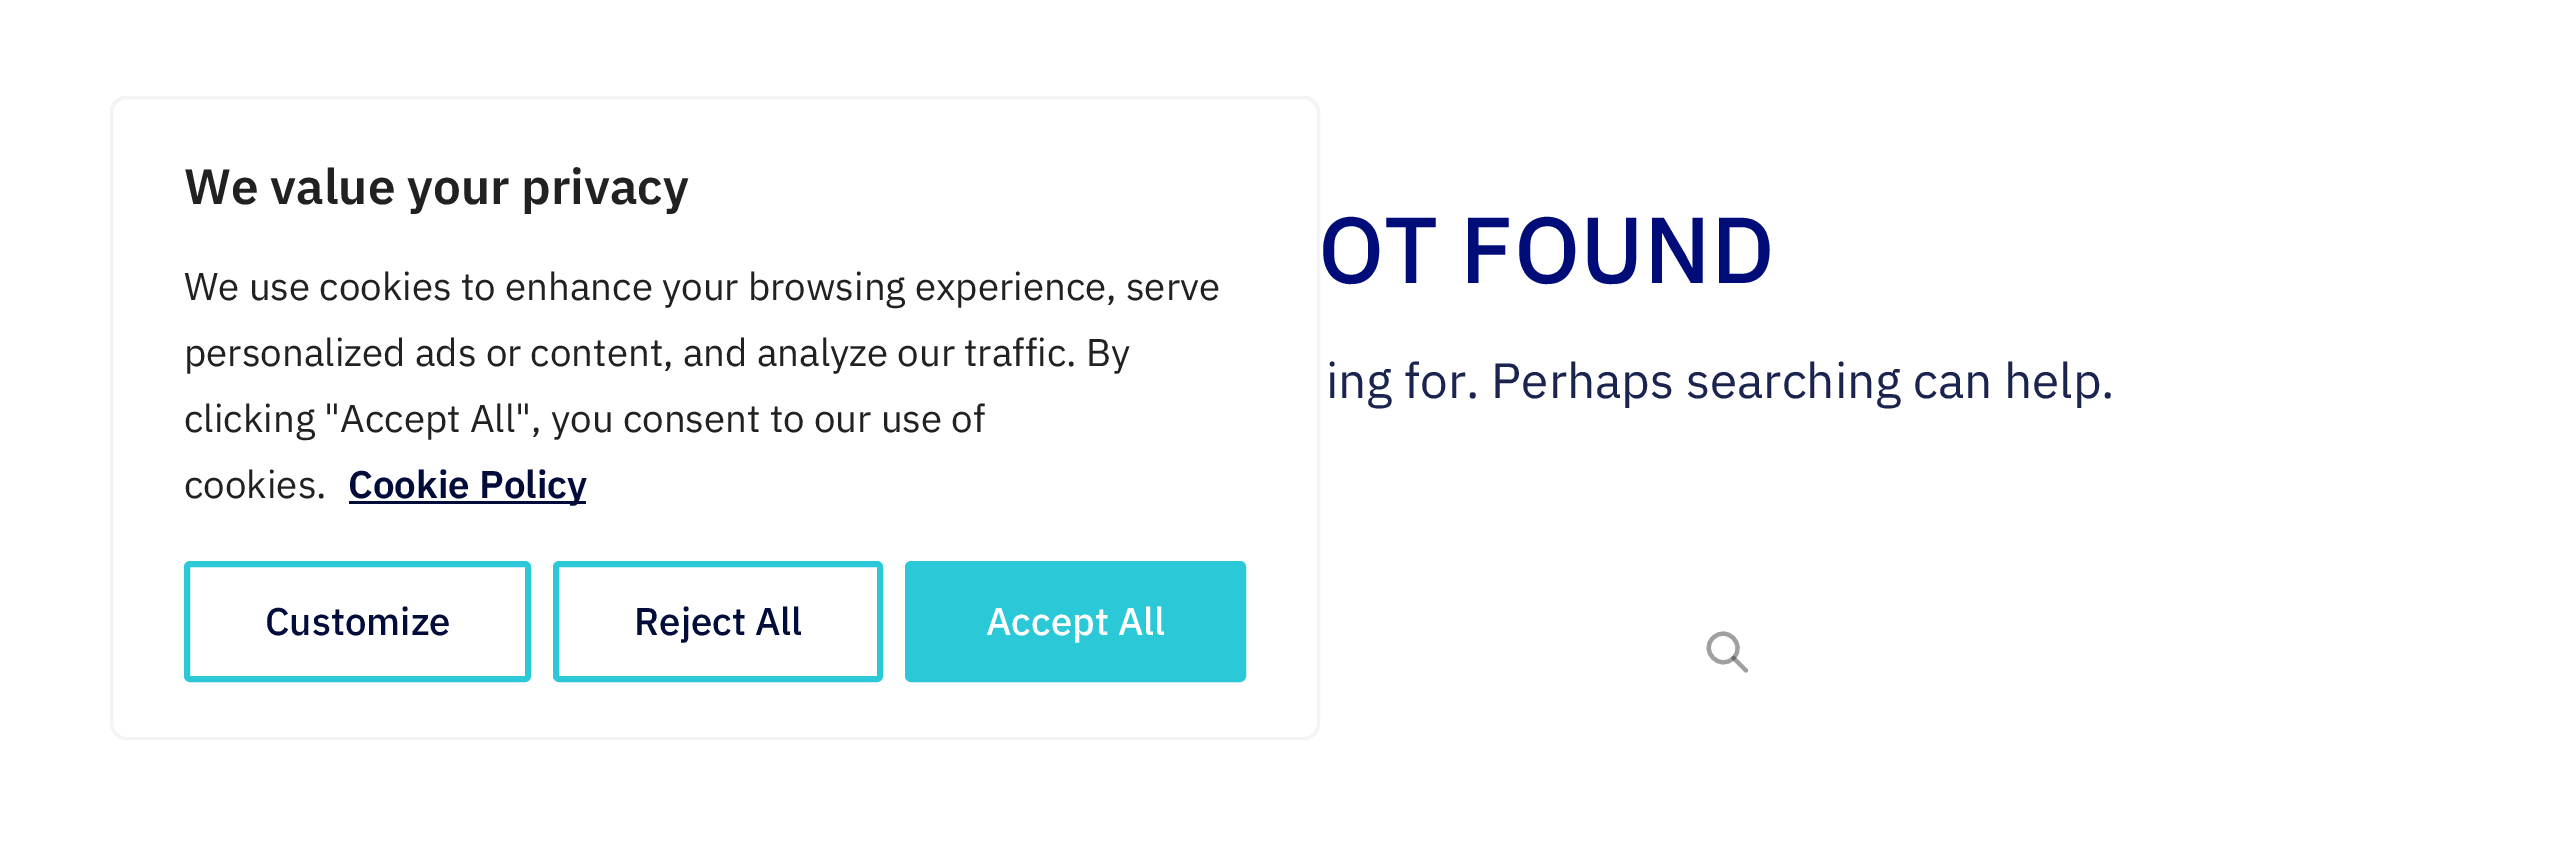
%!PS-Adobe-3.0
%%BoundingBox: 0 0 2570 848
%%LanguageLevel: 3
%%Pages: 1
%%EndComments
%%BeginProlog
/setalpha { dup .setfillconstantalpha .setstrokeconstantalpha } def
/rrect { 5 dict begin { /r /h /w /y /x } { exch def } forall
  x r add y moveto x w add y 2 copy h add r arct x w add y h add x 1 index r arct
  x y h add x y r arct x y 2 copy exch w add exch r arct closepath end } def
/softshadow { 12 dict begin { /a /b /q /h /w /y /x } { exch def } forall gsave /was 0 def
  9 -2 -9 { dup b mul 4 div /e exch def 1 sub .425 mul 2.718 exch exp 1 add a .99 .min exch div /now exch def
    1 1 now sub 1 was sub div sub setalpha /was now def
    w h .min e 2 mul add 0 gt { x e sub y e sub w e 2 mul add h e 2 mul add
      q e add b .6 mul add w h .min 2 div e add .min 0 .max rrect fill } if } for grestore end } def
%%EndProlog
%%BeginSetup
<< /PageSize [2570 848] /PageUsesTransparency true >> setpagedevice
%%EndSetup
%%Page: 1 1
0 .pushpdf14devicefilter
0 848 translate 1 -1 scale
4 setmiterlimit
1 setgray
0 0 2570 848 rectfill
gsave
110 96 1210 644 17 rrect clip newpath
0.675 0.671 0.671 setrgbcolor
110 94 1210 643 17 14 0.3 softshadow
grestore
111.5 97.5 1207 641 15.5 rrect gsave fill grestore
0.957 setgray
3 setlinewidth
stroke
0.004 0.047 0.231 setrgbcolor
349 501 237 3 rectfill
0.169 0.784 0.847 setrgbcolor
6 setlinewidth
187 564 341 115 3 rrect stroke
556 564 324 115 3 rrect stroke
908 564 335 115 3 rrect gsave fill grestore
stroke
0.627 setgray
4.2 setlinewidth
newpath 1713 638 moveto 1726.5 624.5 1746.5 644.5 1733.5 658 curveto 1720 671.5 1699.5 651 1713 638 curveto closepath stroke
0.43 setalpha
0.133 setgray
1 setlinecap
newpath 1733.5 658 moveto 1746 670.5 lineto stroke
/IBMPlexSans-SemiBold [49.5 0 0 -49.5 0 0] selectfont
1 setalpha
0.129 setgray
184 204 moveto (We value your privacy) show
/IBMPlexSans-Regular [38.5 0 0 -38.5 0 0] selectfont
184 300 moveto (We use cookies to enhance your browsing experience, serve) show
184 366 moveto (personalized ads or content, and analyze our traffic. By) show
184 432 moveto (clicking "Accept All", you consent to our use of) show
184 498 moveto (cookies.) show
/IBMPlexSans-SemiBold [38.5 0 0 -38.5 0 0] selectfont
0.004 0.047 0.231 setrgbcolor
348 498 moveto (Cookie Policy) show
/IBMPlexSans-Medium [38.5 0 0 -38.5 0 0] selectfont
265 635 moveto (Customize) show
634 635 moveto (Reject All) show
1 setgray
986 635 moveto (Accept All) show
/IBMPlexSans-Medium [93.5 0 0 -93.5 0 0] selectfont
0 0.047 0.471 setrgbcolor
1318 283 moveto (OT FOUND) show
/IBMPlexSans-Regular [49.5 0 0 -49.5 0 0] selectfont
0.102 0.141 0.306 setrgbcolor
1326 398 moveto (ing for. Perhaps searching can help.) show
.poppdf14devicefilter showpage
%%EOF
